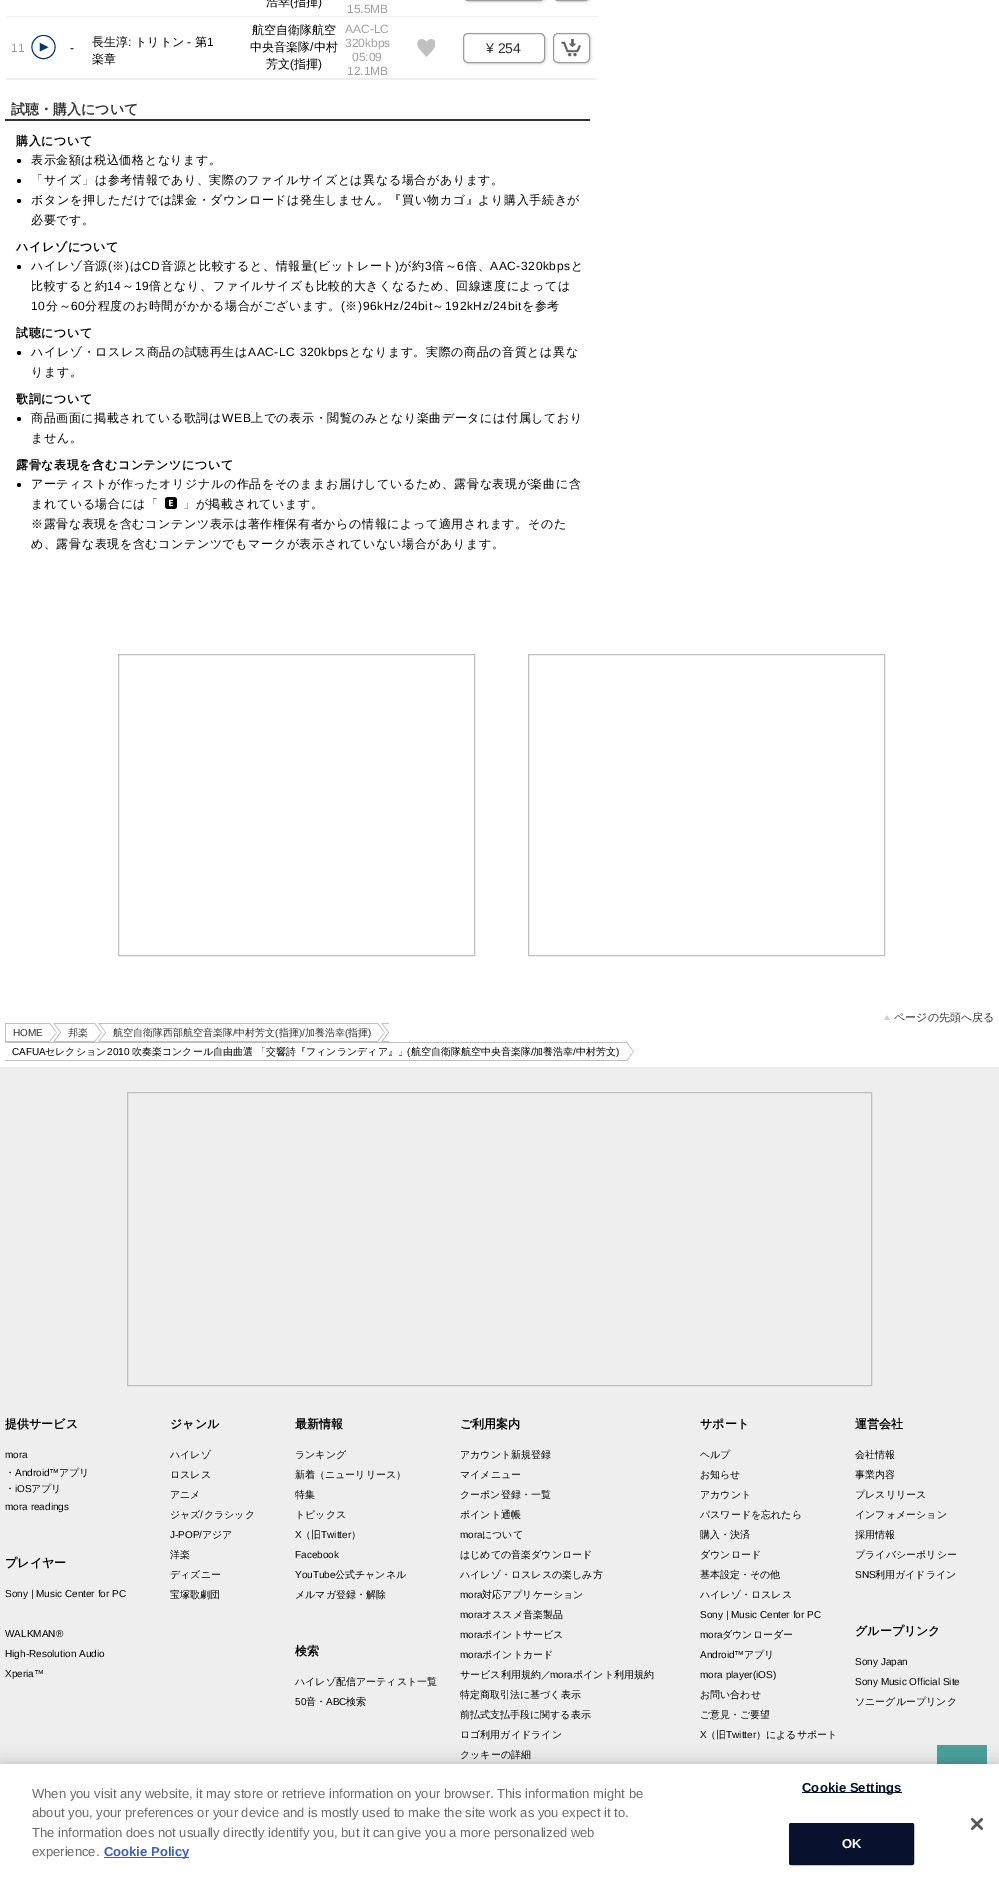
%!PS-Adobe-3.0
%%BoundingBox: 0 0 999 1885
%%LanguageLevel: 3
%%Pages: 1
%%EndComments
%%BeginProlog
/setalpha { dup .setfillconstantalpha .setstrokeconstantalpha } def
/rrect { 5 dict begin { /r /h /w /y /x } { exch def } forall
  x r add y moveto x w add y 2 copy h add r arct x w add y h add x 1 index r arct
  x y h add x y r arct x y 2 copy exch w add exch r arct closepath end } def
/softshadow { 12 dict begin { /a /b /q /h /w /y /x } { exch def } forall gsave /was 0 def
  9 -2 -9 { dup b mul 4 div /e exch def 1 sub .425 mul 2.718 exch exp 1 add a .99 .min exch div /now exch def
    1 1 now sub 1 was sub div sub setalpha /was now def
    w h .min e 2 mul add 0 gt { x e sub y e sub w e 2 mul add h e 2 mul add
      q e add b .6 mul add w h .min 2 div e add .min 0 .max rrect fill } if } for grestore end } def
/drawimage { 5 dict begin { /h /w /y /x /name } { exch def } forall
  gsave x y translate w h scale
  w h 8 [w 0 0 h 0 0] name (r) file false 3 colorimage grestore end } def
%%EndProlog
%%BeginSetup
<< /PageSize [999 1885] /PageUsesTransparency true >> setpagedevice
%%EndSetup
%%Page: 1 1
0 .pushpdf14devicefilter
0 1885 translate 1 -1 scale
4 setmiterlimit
1 setgray
0 0 999 1885 rectfill
0.933 setgray
6 16 591 1 rectfill
0.863 0.859 0.859 setrgbcolor
464 -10 82 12 5 1.5 1 softshadow
0.616 setgray
463.5 -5.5 81 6 4.5 rrect stroke
0.863 0.859 0.859 setrgbcolor
554 -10 37 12 5 1.5 1 softshadow
0.616 setgray
553.5 -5.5 36 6 4.5 rrect stroke
(images/1.raw) 31 35 25 25 drawimage
(images/2.raw) 417 39 18 18 drawimage
0.933 setgray
6 78 591 1 rectfill
gsave
newpath 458 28 moveto 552 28 lineto 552 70 lineto 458 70 lineto closepath 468 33 moveto 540 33 lineto 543 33 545 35 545 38 curveto 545 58 lineto 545 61 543 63 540 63 curveto 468 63 lineto 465 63 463 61 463 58 curveto 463 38 lineto 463 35 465 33 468 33 curveto closepath eoclip newpath
0.863 0.859 0.859 setrgbcolor
464 34 82 30 5 1.5 1 softshadow
grestore
0.616 setgray
463.5 33.5 81 29 4.5 rrect stroke
gsave
newpath 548 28 moveto 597 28 lineto 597 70 lineto 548 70 lineto closepath 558 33 moveto 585 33 lineto 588 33 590 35 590 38 curveto 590 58 lineto 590 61 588 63 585 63 curveto 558 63 lineto 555 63 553 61 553 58 curveto 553 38 lineto 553 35 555 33 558 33 curveto closepath eoclip newpath
0.863 0.859 0.859 setrgbcolor
554 34 37 30 5 1.5 1 softshadow
grestore
553.5 33.5 36 29 4.5 rrect stroke
(images/3.raw) 561 39 20 18 drawimage
0.933 setgray
6 79 591 1 rectfill
0.2 setgray
5 119 585 2 rectfill
0 setgray
newpath 19 161 2 0 360 arc closepath fill
newpath 19 181 2 0 360 arc closepath fill
newpath 19 201 2 0 360 arc closepath fill
newpath 19 267 2 0 360 arc closepath fill
newpath 19 353 2 0 360 arc closepath fill
newpath 19 419 2 0 360 arc closepath fill
newpath 19 485 2 0 360 arc closepath fill
(images/4.raw) 165 497 12 12 drawimage
0.753 setgray
118.5 654.5 356 301 rectstroke
528.5 654.5 356 301 rectstroke
(images/5.raw) 884 1015 6 5 drawimage
5 1023 45 1 rectfill
5 1041 45 1 rectfill
5 1023 1 19 rectfill
(images/6.raw) 50 1023 11 19 drawimage
61 1023 34 1 rectfill
61 1041 34 1 rectfill
(images/6.raw) 95 1023 11 19 drawimage
106 1023 272 1 rectfill
106 1041 272 1 rectfill
(images/6.raw) 378 1023 11 19 drawimage
5 1042 622 1 rectfill
5 1060 622 1 rectfill
(images/7.raw) 627 1042 7 19 drawimage
0.933 setgray
0 1067 999 697 rectfill
0.753 setgray
127.5 1092.5 744 293 rectstroke
0.298 0.624 0.608 setrgbcolor
937 1745 50 19 rectfill
0 setgray
0 1764 999 121 0 9 0.2 softshadow
1 setgray
0 1764 999 121 rectfill
0.22 0.376 0.745 setrgbcolor
104 1857 85 1 rectfill
0.031 0.067 0.18 setrgbcolor
802 1792 100 1 rectfill
789.5 1823.5 124 41 1.5 rrect gsave fill grestore
stroke
(images/8.raw) 971 1818 12 12 drawimage
/WenQuanYiZenHei-Medium [12 0 0 -12 0 0] selectfont
0 setgray
266 6 moveto (浩幸) show
/LiberationSans-Regular [12 0 0 -12 0 0] selectfont
290 6 moveto (\() show
/WenQuanYiZenHei-Medium [12 0 0 -12 0 0] selectfont
294 6 moveto (指揮) show
/LiberationSans-Regular [12 0 0 -12 0 0] selectfont
318 6 moveto (\)) show
0.62 setgray
347 13 moveto (15.5MB) show
11 52 moveto (11) show
0 setgray
70 52 moveto (-) show
/WenQuanYiZenHei-Medium [12 0 0 -12 0 0] selectfont
92 46 moveto (長生淳) show
/LiberationSans-Regular [12 0 0 -12 0 0] selectfont
128 46 moveto (:) show
/WenQuanYiZenHei-Medium [12 0 0 -12 0 0] selectfont
135 46 moveto (トリトン) show
/LiberationSans-Regular [12 0 0 -12 0 0] selectfont
187 46 moveto (-) show
/WenQuanYiZenHei-Medium [12 0 0 -12 0 0] selectfont
195 46 moveto (第) show
/LiberationSans-Regular [12 0 0 -12 0 0] selectfont
207 46 moveto (1) show
/WenQuanYiZenHei-Medium [12 0 0 -12 0 0] selectfont
92 63 moveto (楽章) show
252 34 moveto (航空自衛隊航空) show
250 51 moveto (中央音楽隊 中村) show
/LiberationSans-Regular [12 0 0 -12 0 0] selectfont
310 51 moveto (/) show
/WenQuanYiZenHei-Medium [12 0 0 -12 0 0] selectfont
266 68 moveto (芳文) show
/LiberationSans-Regular [12 0 0 -12 0 0] selectfont
290 68 moveto (\() show
/WenQuanYiZenHei-Medium [12 0 0 -12 0 0] selectfont
294 68 moveto (指揮) show
/LiberationSans-Regular [12 0 0 -12 0 0] selectfont
318 68 moveto (\)) show
0.62 setgray
345 33 moveto (AAC-LC) show
345 47 moveto (320kbps) show
352 61 moveto (05:09) show
347 75 moveto (12.1MB) show
/LiberationSans-Regular [14 0 0 -14 0 0] selectfont
0.2 setgray
486 53 moveto (¥ 254) show
/WenQuanYiZenHei-Bold [14 0 0 -14 0 0] selectfont
11 114 moveto (試聴・購入について) show
/WenQuanYiZenHei-Bold [12 0 0 -12 0 0] selectfont
0 setgray
16 145 moveto 0.6 0 (購入について) ashow
/WenQuanYiZenHei-Medium [12 0 0 -12 0 0] selectfont
31 164 moveto 0.6 0 (表示金額は税込価格となります。) ashow
31 184 moveto 0.6 0 (「サイズ」は参考情報であり、実際のファイルサイズとは異なる場合があります。) ashow
31 204 moveto 0.6 0 (ボタンを押しただけでは課金・ダウンロードは発生しません。『買い物カゴ』より購入手続きが) ashow
31 224 moveto 0.6 0 (必要です。) ashow
/WenQuanYiZenHei-Bold [12 0 0 -12 0 0] selectfont
16 251 moveto 0.6 0 (ハイレゾについて) ashow
/WenQuanYiZenHei-Medium [12 0 0 -12 0 0] selectfont
31 270 moveto 0.6 0 (ハイレゾ音源) ashow
/LiberationSans-Regular [12 0 0 -12 0 0] selectfont
108 270 moveto 0.6 0 (\() ashow
/WenQuanYiZenHei-Medium [12 0 0 -12 0 0] selectfont
112 270 moveto 0.6 0 (※) ashow
/LiberationSans-Regular [12 0 0 -12 0 0] selectfont
125 270 moveto 0.6 0 (\)) ashow
/WenQuanYiZenHei-Medium [12 0 0 -12 0 0] selectfont
130 270 moveto 0.6 0 (は) ashow
/LiberationSans-Regular [12 0 0 -12 0 0] selectfont
142 270 moveto 0.6 0 (CD) ashow
/WenQuanYiZenHei-Medium [12 0 0 -12 0 0] selectfont
161 270 moveto 0.6 0 (音源と比較すると、情報量) ashow
/LiberationSans-Regular [12 0 0 -12 0 0] selectfont
313 270 moveto 0.6 0 (\() ashow
/WenQuanYiZenHei-Medium [12 0 0 -12 0 0] selectfont
318 270 moveto 0.6 0 (ビットレート) ashow
/LiberationSans-Regular [12 0 0 -12 0 0] selectfont
395 270 moveto 0.6 0 (\)) ashow
/WenQuanYiZenHei-Medium [12 0 0 -12 0 0] selectfont
399 270 moveto 0.6 0 (が約) ashow
/LiberationSans-Regular [12 0 0 -12 0 0] selectfont
425 270 moveto 0.6 0 (3) ashow
/WenQuanYiZenHei-Medium [12 0 0 -12 0 0] selectfont
432 270 moveto 0.6 0 (倍～) ashow
/LiberationSans-Regular [12 0 0 -12 0 0] selectfont
457 270 moveto 0.6 0 (6) ashow
/WenQuanYiZenHei-Medium [12 0 0 -12 0 0] selectfont
465 270 moveto 0.6 0 (倍、) ashow
/LiberationSans-Regular [12 0 0 -12 0 0] selectfont
490 270 moveto 0.6 0 (AAC-320kbps) ashow
/WenQuanYiZenHei-Medium [12 0 0 -12 0 0] selectfont
571 270 moveto 0.6 0 (と) ashow
31 290 moveto 0.6 0 (比較すると約) ashow
/LiberationSans-Regular [12 0 0 -12 0 0] selectfont
107 290 moveto 0.6 0 (14) ashow
/WenQuanYiZenHei-Medium [12 0 0 -12 0 0] selectfont
122 290 moveto 0.6 0 (～) ashow
/LiberationSans-Regular [12 0 0 -12 0 0] selectfont
135 290 moveto 0.6 0 (19) ashow
/WenQuanYiZenHei-Medium [12 0 0 -12 0 0] selectfont
149 290 moveto 0.6 0 (倍となり、ファイルサイズも比較的大きくなるため、回線速度によっては) ashow
/LiberationSans-Regular [12 0 0 -12 0 0] selectfont
31 310 moveto 0.6 0 (10) ashow
/WenQuanYiZenHei-Medium [12 0 0 -12 0 0] selectfont
46 310 moveto 0.6 0 (分～) ashow
/LiberationSans-Regular [12 0 0 -12 0 0] selectfont
71 310 moveto 0.6 0 (60) ashow
/WenQuanYiZenHei-Medium [12 0 0 -12 0 0] selectfont
85 310 moveto 0.6 0 (分程度のお時間がかかる場合がございます。) ashow
/LiberationSans-Regular [12 0 0 -12 0 0] selectfont
341 310 moveto 0.6 0 (\() ashow
/WenQuanYiZenHei-Medium [12 0 0 -12 0 0] selectfont
345 310 moveto 0.6 0 (※) ashow
/LiberationSans-Regular [12 0 0 -12 0 0] selectfont
358 310 moveto 0.6 0 (\)96kHz/24bit) ashow
/WenQuanYiZenHei-Medium [12 0 0 -12 0 0] selectfont
432 310 moveto 0.6 0 (～) ashow
/LiberationSans-Regular [12 0 0 -12 0 0] selectfont
445 310 moveto 0.6 0 (192kHz/24bit) ashow
/WenQuanYiZenHei-Medium [12 0 0 -12 0 0] selectfont
522 310 moveto 0.6 0 (を参考) ashow
/WenQuanYiZenHei-Bold [12 0 0 -12 0 0] selectfont
16 337 moveto 0.6 0 (試聴について) ashow
/WenQuanYiZenHei-Medium [12 0 0 -12 0 0] selectfont
31 356 moveto 0.6 0 (ハイレゾ・ロスレス商品の試聴再生は) ashow
/LiberationSans-Regular [12 0 0 -12 0 0] selectfont
248 356 moveto 0.6 0 (AAC-LC 320kbps) ashow
/WenQuanYiZenHei-Medium [12 0 0 -12 0 0] selectfont
349 356 moveto 0.6 0 (となります。実際の商品の音質とは異な) ashow
31 376 moveto 0.6 0 (ります。) ashow
/WenQuanYiZenHei-Bold [12 0 0 -12 0 0] selectfont
16 403 moveto 0.6 0 (歌詞について) ashow
/WenQuanYiZenHei-Medium [12 0 0 -12 0 0] selectfont
31 422 moveto 0.6 0 (商品画面に掲載されている歌詞は) ashow
/LiberationSans-Regular [12 0 0 -12 0 0] selectfont
222 422 moveto 0.6 0 (WEB) ashow
/WenQuanYiZenHei-Medium [12 0 0 -12 0 0] selectfont
251 422 moveto 0.6 0 (上での表示・閲覧のみとなり楽曲データには付属しており) ashow
31 442 moveto 0.6 0 (ません。) ashow
/WenQuanYiZenHei-Bold [12 0 0 -12 0 0] selectfont
16 469 moveto 0.6 0 (露骨な表現を含むコンテンツについて) ashow
/WenQuanYiZenHei-Medium [12 0 0 -12 0 0] selectfont
31 488 moveto 0.6 0 (アーティストが作ったオリジナルの作品をそのままお届けしているため、露骨な表現が楽曲に含) ashow
31 508 moveto 0.6 0 (まれている場合には「) ashow
183 508 moveto 0.6 0 (」が掲載されています。) ashow
31 528 moveto 0.6 0 (※露骨な表現を含むコンテンツ表示は著作権保有者からの情報によって適用されます。そのた) ashow
31 548 moveto 0.6 0 (め、露骨な表現を含むコンテンツでもマークが表示されていない場合があります。) ashow
/WenQuanYiZenHei-Medium [11 0 0 -11 0 0] selectfont
0.2 setgray
894 1021 moveto (ページの先頭へ戻る) show
/LiberationSans-Regular [10 0 0 -10 0 0] selectfont
13 1036 moveto (HOME) show
/WenQuanYiZenHei-Medium [10 0 0 -10 0 0] selectfont
68 1036 moveto (邦楽) show
113 1036 moveto (航空自衛隊西部航空音楽隊) show
/LiberationSans-Regular [10 0 0 -10 0 0] selectfont
233 1036 moveto (/) show
/WenQuanYiZenHei-Medium [10 0 0 -10 0 0] selectfont
235 1036 moveto (中村芳文) show
/LiberationSans-Regular [10 0 0 -10 0 0] selectfont
275 1036 moveto (\() show
/WenQuanYiZenHei-Medium [10 0 0 -10 0 0] selectfont
279 1036 moveto (指揮) show
/LiberationSans-Regular [10 0 0 -10 0 0] selectfont
299 1036 moveto (\)/) show
/WenQuanYiZenHei-Medium [10 0 0 -10 0 0] selectfont
305 1036 moveto (加養浩幸) show
/LiberationSans-Regular [10 0 0 -10 0 0] selectfont
345 1036 moveto (\() show
/WenQuanYiZenHei-Medium [10 0 0 -10 0 0] selectfont
348 1036 moveto (指揮) show
/LiberationSans-Regular [10 0 0 -10 0 0] selectfont
368 1036 moveto (\)) show
0 setgray
12 1055 moveto (CAFUA) show
/WenQuanYiZenHei-Medium [10 0 0 -10 0 0] selectfont
45 1055 moveto (セレクション) show
/LiberationSans-Regular [10 0 0 -10 0 0] selectfont
107 1055 moveto (2010) show
/WenQuanYiZenHei-Medium [10 0 0 -10 0 0] selectfont
132 1055 moveto (吹奏楽コンクール自由曲選 「交響詩『フィンランディア』」) show
/LiberationSans-Regular [10 0 0 -10 0 0] selectfont
407 1055 moveto (\() show
/WenQuanYiZenHei-Medium [10 0 0 -10 0 0] selectfont
411 1055 moveto (航空自衛隊航空中央音楽隊) show
/LiberationSans-Regular [10 0 0 -10 0 0] selectfont
531 1055 moveto (/) show
/WenQuanYiZenHei-Medium [10 0 0 -10 0 0] selectfont
533 1055 moveto (加養浩幸) show
/LiberationSans-Regular [10 0 0 -10 0 0] selectfont
573 1055 moveto (/) show
/WenQuanYiZenHei-Medium [10 0 0 -10 0 0] selectfont
576 1055 moveto (中村芳文) show
/LiberationSans-Regular [10 0 0 -10 0 0] selectfont
616 1055 moveto (\)) show
/WenQuanYiZenHei-Bold [12 0 0 -12 0 0] selectfont
5 1428 moveto (提供サービス) show
/LiberationSans-Regular [10 0 0 -10 0 0] selectfont
5 1458 moveto (mora) show
/WenQuanYiZenHei-Medium [10 0 0 -10 0 0] selectfont
5 1476 moveto (・) show
/LiberationSans-Regular [10 0 0 -10 0 0] selectfont
15 1476 moveto (Android™) show
/WenQuanYiZenHei-Medium [10 0 0 -10 0 0] selectfont
59 1476 moveto (アプリ) show
5 1492 moveto (・) show
/LiberationSans-Regular [10 0 0 -10 0 0] selectfont
15 1492 moveto (iOS) show
/WenQuanYiZenHei-Medium [10 0 0 -10 0 0] selectfont
31 1492 moveto (アプリ) show
/LiberationSans-Regular [10 0 0 -10 0 0] selectfont
5 1510 moveto (mora readings) show
/WenQuanYiZenHei-Bold [12 0 0 -12 0 0] selectfont
5 1567 moveto (プレイヤー) show
/LiberationSans-Regular [10 0 0 -10 0 0] selectfont
5 1597 moveto (Sony | Music Center for PC) show
5 1637 moveto (WALKMAN®) show
5 1657 moveto (High-Resolution Audio) show
5 1677 moveto (Xperia™) show
/WenQuanYiZenHei-Bold [12 0 0 -12 0 0] selectfont
170 1428 moveto (ジャンル) show
/WenQuanYiZenHei-Medium [10 0 0 -10 0 0] selectfont
170 1458 moveto (ハイレゾ) show
170 1478 moveto (ロスレス) show
170 1498 moveto (アニメ) show
170 1518 moveto (ジャズ クラシック) show
/LiberationSans-Regular [10 0 0 -10 0 0] selectfont
200 1518 moveto (/) show
170 1538 moveto (J-POP/) show
/WenQuanYiZenHei-Medium [10 0 0 -10 0 0] selectfont
202 1538 moveto (アジア) show
170 1558 moveto (洋楽) show
170 1578 moveto (ディズニー) show
170 1598 moveto (宝塚歌劇団) show
/WenQuanYiZenHei-Bold [12 0 0 -12 0 0] selectfont
295 1428 moveto (最新情報) show
/WenQuanYiZenHei-Medium [10 0 0 -10 0 0] selectfont
295 1458 moveto (ランキング) show
295 1478 moveto (新着（ニューリリース）) show
295 1498 moveto (特集) show
295 1518 moveto (トピックス) show
/LiberationSans-Regular [10 0 0 -10 0 0] selectfont
295 1538 moveto (X) show
/WenQuanYiZenHei-Medium [10 0 0 -10 0 0] selectfont
301 1538 moveto (（旧) show
/LiberationSans-Regular [10 0 0 -10 0 0] selectfont
321 1538 moveto (Twitter) show
/WenQuanYiZenHei-Medium [10 0 0 -10 0 0] selectfont
351 1538 moveto (）) show
/LiberationSans-Regular [10 0 0 -10 0 0] selectfont
295 1558 moveto (Facebook) show
295 1578 moveto (YouTube) show
/WenQuanYiZenHei-Medium [10 0 0 -10 0 0] selectfont
335 1578 moveto (公式チャンネル) show
295 1598 moveto (メルマガ登録・解除) show
/WenQuanYiZenHei-Bold [12 0 0 -12 0 0] selectfont
295 1655 moveto (検索) show
/WenQuanYiZenHei-Medium [10 0 0 -10 0 0] selectfont
295 1685 moveto (ハイレゾ配信アーティスト一覧) show
/LiberationSans-Regular [10 0 0 -10 0 0] selectfont
295 1705 moveto (50) show
/WenQuanYiZenHei-Medium [10 0 0 -10 0 0] selectfont
306 1705 moveto (音・) show
/LiberationSans-Regular [10 0 0 -10 0 0] selectfont
326 1705 moveto (ABC) show
/WenQuanYiZenHei-Medium [10 0 0 -10 0 0] selectfont
346 1705 moveto (検索) show
/WenQuanYiZenHei-Bold [12 0 0 -12 0 0] selectfont
460 1428 moveto (ご利用案内) show
/WenQuanYiZenHei-Medium [10 0 0 -10 0 0] selectfont
460 1458 moveto (アカウント新規登録) show
460 1478 moveto (マイメニュー) show
460 1498 moveto (クーポン登録・一覧) show
460 1518 moveto (ポイント通帳) show
/LiberationSans-Regular [10 0 0 -10 0 0] selectfont
460 1538 moveto (mora) show
/WenQuanYiZenHei-Medium [10 0 0 -10 0 0] selectfont
482 1538 moveto (について) show
460 1558 moveto (はじめての音楽ダウンロード) show
460 1578 moveto (ハイレゾ・ロスレスの楽しみ方) show
/LiberationSans-Regular [10 0 0 -10 0 0] selectfont
460 1598 moveto (mora) show
/WenQuanYiZenHei-Medium [10 0 0 -10 0 0] selectfont
482 1598 moveto (対応アプリケーション) show
/LiberationSans-Regular [10 0 0 -10 0 0] selectfont
460 1618 moveto (mora) show
/WenQuanYiZenHei-Medium [10 0 0 -10 0 0] selectfont
482 1618 moveto (オススメ音楽製品) show
/LiberationSans-Regular [10 0 0 -10 0 0] selectfont
460 1638 moveto (mora) show
/WenQuanYiZenHei-Medium [10 0 0 -10 0 0] selectfont
482 1638 moveto (ポイントサービス) show
/LiberationSans-Regular [10 0 0 -10 0 0] selectfont
460 1658 moveto (mora) show
/WenQuanYiZenHei-Medium [10 0 0 -10 0 0] selectfont
482 1658 moveto (ポイントカード) show
460 1678 moveto (サービス利用規約／) show
/LiberationSans-Regular [10 0 0 -10 0 0] selectfont
550 1678 moveto (mora) show
/WenQuanYiZenHei-Medium [10 0 0 -10 0 0] selectfont
573 1678 moveto (ポイント利用規約) show
460 1698 moveto (特定商取引法に基づく表示) show
460 1718 moveto (前払式支払手段に関する表示) show
460 1738 moveto (ロゴ利用ガイドライン) show
460 1758 moveto (クッキーの詳細) show
/WenQuanYiZenHei-Bold [12 0 0 -12 0 0] selectfont
700 1428 moveto (サポート) show
/WenQuanYiZenHei-Medium [10 0 0 -10 0 0] selectfont
700 1458 moveto (ヘルプ) show
700 1478 moveto (お知らせ) show
700 1498 moveto (アカウント) show
700 1518 moveto (パスワードを忘れたら) show
700 1538 moveto (購入・決済) show
700 1558 moveto (ダウンロード) show
700 1578 moveto (基本設定・その他) show
700 1598 moveto (ハイレゾ・ロスレス) show
/LiberationSans-Regular [10 0 0 -10 0 0] selectfont
700 1618 moveto (Sony | Music Center for PC) show
700 1638 moveto (mora) show
/WenQuanYiZenHei-Medium [10 0 0 -10 0 0] selectfont
722 1638 moveto (ダウンローダー) show
/LiberationSans-Regular [10 0 0 -10 0 0] selectfont
700 1658 moveto (Android™) show
/WenQuanYiZenHei-Medium [10 0 0 -10 0 0] selectfont
744 1658 moveto (アプリ) show
/LiberationSans-Regular [10 0 0 -10 0 0] selectfont
700 1678 moveto (mora player\(iOS\)) show
/WenQuanYiZenHei-Medium [10 0 0 -10 0 0] selectfont
700 1698 moveto (お問い合わせ) show
700 1718 moveto (ご意見・ご要望) show
/LiberationSans-Regular [10 0 0 -10 0 0] selectfont
700 1738 moveto (X) show
/WenQuanYiZenHei-Medium [10 0 0 -10 0 0] selectfont
706 1738 moveto (（旧) show
/LiberationSans-Regular [10 0 0 -10 0 0] selectfont
726 1738 moveto (Twitter) show
/WenQuanYiZenHei-Medium [10 0 0 -10 0 0] selectfont
756 1738 moveto (）によるサポート) show
/WenQuanYiZenHei-Bold [12 0 0 -12 0 0] selectfont
855 1428 moveto (運営会社) show
/WenQuanYiZenHei-Medium [10 0 0 -10 0 0] selectfont
855 1458 moveto (会社情報) show
855 1478 moveto (事業内容) show
855 1498 moveto (プレスリリース) show
855 1518 moveto (インフォメーション) show
855 1538 moveto (採用情報) show
855 1558 moveto (プライバシーポリシー) show
/LiberationSans-Regular [10 0 0 -10 0 0] selectfont
855 1578 moveto (SNS) show
/WenQuanYiZenHei-Medium [10 0 0 -10 0 0] selectfont
875 1578 moveto (利用ガイドライン) show
/WenQuanYiZenHei-Bold [12 0 0 -12 0 0] selectfont
855 1635 moveto (グループリンク) show
/LiberationSans-Regular [10 0 0 -10 0 0] selectfont
855 1665 moveto (Sony Japan) show
855 1685 moveto (Sony Music Official Site) show
/WenQuanYiZenHei-Medium [10 0 0 -10 0 0] selectfont
855 1705 moveto (ソニーグループリンク) show
/LiberationSans-Regular [13 0 0 -13 0 0] selectfont
0.412 setgray
32 1798 moveto (When you visit any website, it may store or retrieve information on your browser. This information might be) show
32 1817 moveto (about you, your preferences or your device and is mostly used to make the site work as you expect it to.) show
32 1837 moveto (The information does not usually directly identify you, but it can give you a more personalized web) show
32 1856 moveto (experience.) show
/LiberationSans-Bold [13 0 0 -13 0 0] selectfont
0.22 0.376 0.745 setrgbcolor
104 1856 moveto (Cookie Policy) show
0.031 0.067 0.18 setrgbcolor
802 1792 moveto 0.1 0 (Cookie Settings) ashow
1 setgray
842 1848 moveto 0.1 0 (OK) ashow
.poppdf14devicefilter showpage
%%EOF
